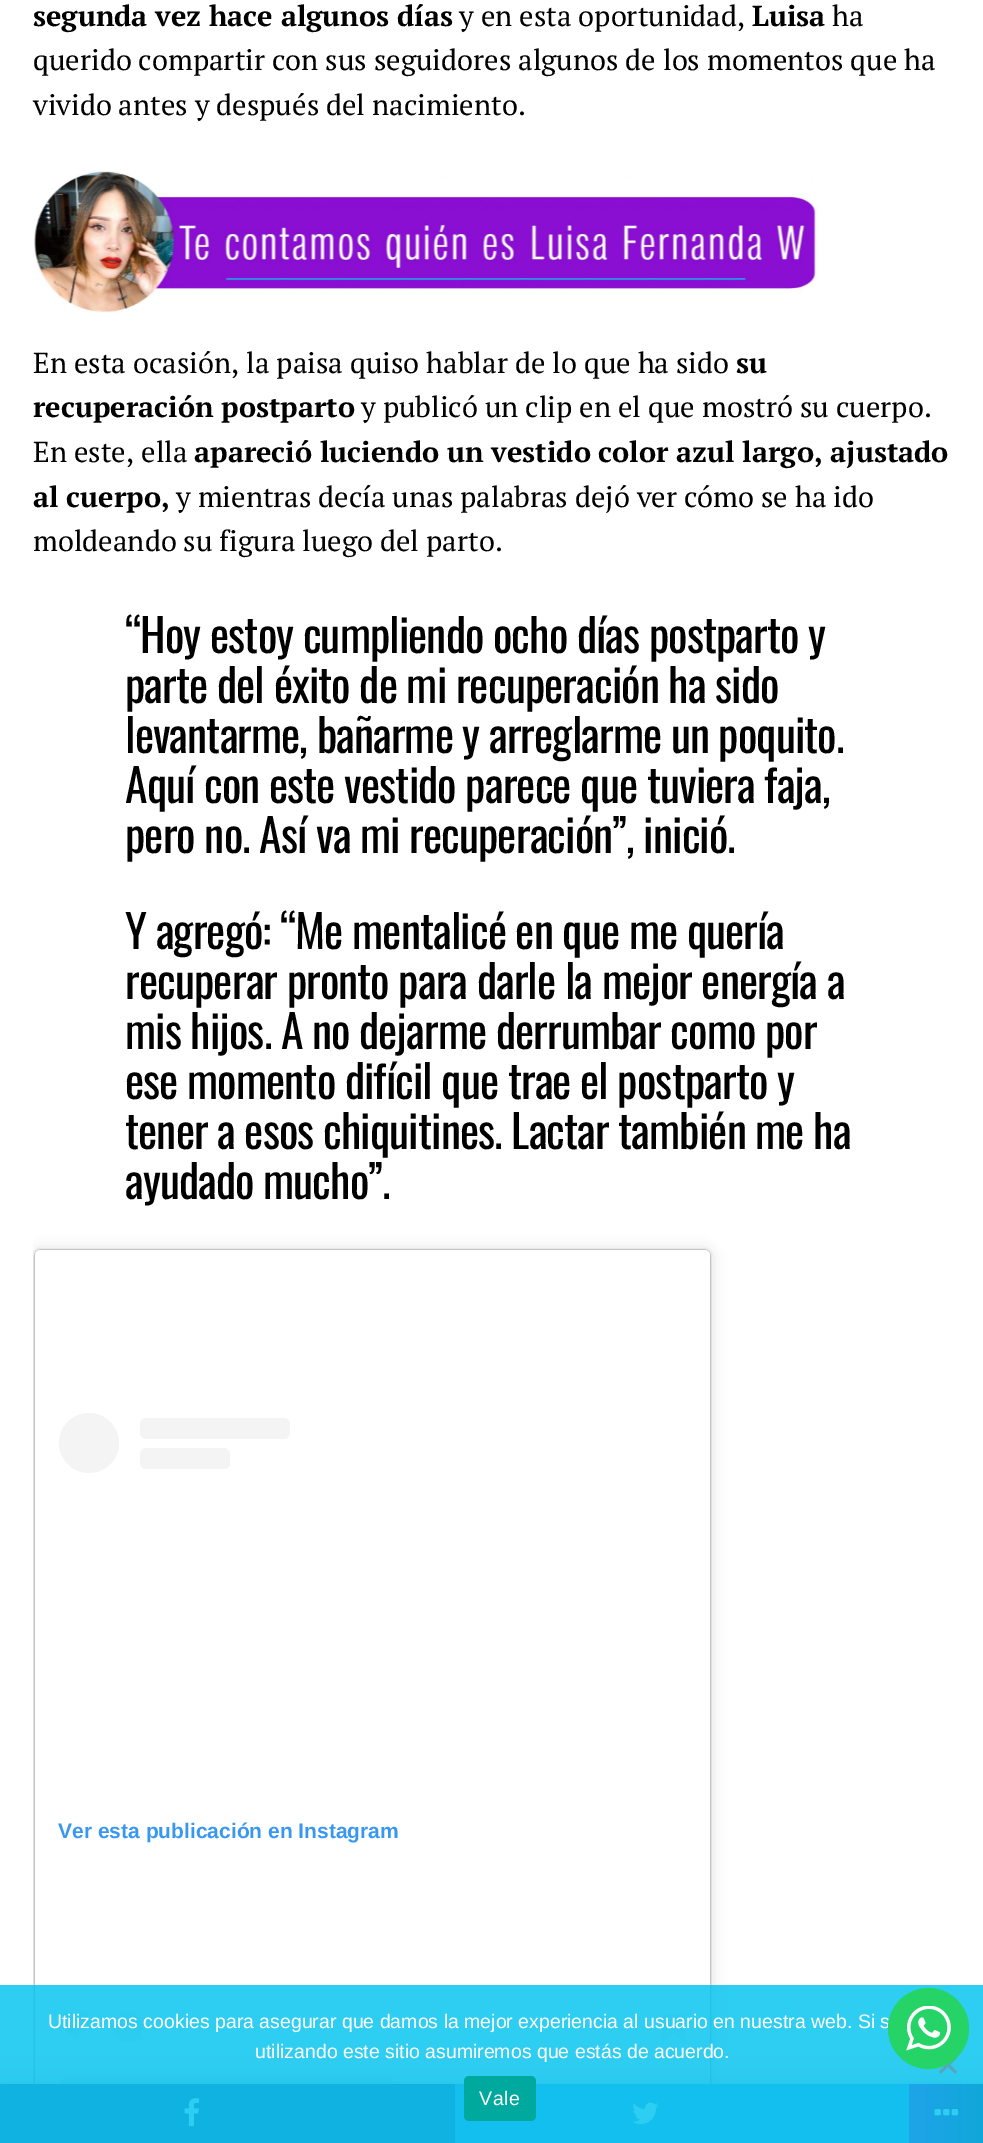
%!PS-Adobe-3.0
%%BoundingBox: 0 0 983 2143
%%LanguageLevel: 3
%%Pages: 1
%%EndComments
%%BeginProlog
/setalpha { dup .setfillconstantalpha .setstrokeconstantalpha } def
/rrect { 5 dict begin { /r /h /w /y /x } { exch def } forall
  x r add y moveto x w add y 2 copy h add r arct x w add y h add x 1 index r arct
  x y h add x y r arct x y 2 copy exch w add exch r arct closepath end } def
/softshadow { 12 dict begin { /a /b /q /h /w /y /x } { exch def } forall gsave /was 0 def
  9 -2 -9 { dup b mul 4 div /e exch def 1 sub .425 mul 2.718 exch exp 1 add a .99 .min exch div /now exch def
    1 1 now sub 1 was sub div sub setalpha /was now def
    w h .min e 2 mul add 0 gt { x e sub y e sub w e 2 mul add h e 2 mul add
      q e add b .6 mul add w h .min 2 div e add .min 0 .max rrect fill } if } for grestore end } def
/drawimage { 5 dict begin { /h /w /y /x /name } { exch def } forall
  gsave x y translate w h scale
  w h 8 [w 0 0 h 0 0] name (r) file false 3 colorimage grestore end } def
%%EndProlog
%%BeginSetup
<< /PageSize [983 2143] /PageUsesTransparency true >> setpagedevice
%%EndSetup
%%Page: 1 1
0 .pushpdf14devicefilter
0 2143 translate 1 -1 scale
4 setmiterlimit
1 setgray
0 0 983 2143 rectfill
(images/1.raw) 34 171 785 142 drawimage
gsave
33 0 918 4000 rectclip
0 setgray
35 1251 675 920 5 7.5 0.15 softshadow
grestore
0 setgray
35 1250 675 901 5 1 0.5 softshadow
1 setgray
35 1250 675 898 5 rrect fill
0.957 setgray
newpath 89 1443 30 0 360 arc closepath fill
140 1418 150 21 6 rrect fill
140 1448 90 21 6 rrect fill
newpath 68 2021 9 0 360 arc closepath fill
newpath 61.5 2026.5 moveto 75 2013.5 lineto 88 2026.5 lineto 75 2040 lineto closepath fill
newpath 81 2021 9 0 360 arc closepath fill
newpath 128 2027 15 0 360 arc closepath fill
newpath 136 2038 moveto 139 2033 lineto 145.5 2040 lineto closepath fill
newpath 661.5 2032.5 moveto 673.5 2032.5 lineto 661.5 2044.5 lineto closepath fill
662 2015 24 18 rectfill
newpath 673.5 2032.5 moveto 685.5 2032.5 lineto 685.5 2044.5 lineto closepath fill
59 2078 336 21 6 rrect fill
0 setgray
0 2084 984 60 0 12 0.2 softshadow
0.231 0.349 0.596 setrgbcolor
0 2084 455 59 rectfill
(images/2.raw) 184 2098 16 29 drawimage
0.333 0.675 0.933 setrgbcolor
455 2084 454 59 rectfill
(images/3.raw) 632 2102 27 22 drawimage
gsave newpath 909 2084 moveto 983 2084 lineto 983 2143 lineto 909 2143 lineto closepath clip newpath
<< /ShadingType 2 /ColorSpace /DeviceRGB /Coords [909 2114 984 2114] /Extend [true true] /Function << /FunctionType 2 /Domain [0 1] /C0 [0.6 0 0.8] /C1 [0.275 0.067 0.396] /N 1 >> >> shfill grestore
(images/4.raw) 934 2109 25 7 drawimage
0.84 setalpha
0.024 0.765 0.937 setrgbcolor
0 1985 983 158 rectfill
1 setalpha
0.341 0.651 0.725 setrgbcolor
newpath 955 2055.5 moveto 957 2058 lineto 941 2074 lineto 939 2071.5 lineto closepath fill
newpath 939 2058 moveto 941 2055.5 lineto 957 2071.5 lineto 955 2074 lineto closepath fill
0 0.663 0.616 setrgbcolor
464 2076 72 45 5 rrect fill
/PTSerif-Bold [28.8 0 0 -28.8 0 0] selectfont
0 setgray
33 26 moveto (segunda vez hace algunos días) show
/PTSerif-Regular [28.8 0 0 -28.8 0 0] selectfont
459 26 moveto (y en esta oportunidad,) show
/PTSerif-Bold [28.8 0 0 -28.8 0 0] selectfont
752 26 moveto (Luisa) show
/PTSerif-Regular [28.8 0 0 -28.8 0 0] selectfont
832 26 moveto (ha) show
33 70 moveto (querido compartir con sus seguidores algunos de los momentos que ha) show
33 115 moveto (vivido antes y después del nacimiento.) show
33 373 moveto (En esta ocasión, la paisa quiso hablar de lo que ha sido) show
/PTSerif-Bold [28.8 0 0 -28.8 0 0] selectfont
736 373 moveto (su) show
33 417 moveto (recuperación postparto) show
/PTSerif-Regular [28.8 0 0 -28.8 0 0] selectfont
361 417 moveto (y publicó un clip en el que mostró su cuerpo.) show
33 462 moveto (En este, ella) show
/PTSerif-Bold [28.8 0 0 -28.8 0 0] selectfont
194 462 moveto (apareció luciendo un vestido color azul largo, ajustado) show
33 507 moveto (al cuerpo,) show
/PTSerif-Regular [28.8 0 0 -28.8 0 0] selectfont
176 507 moveto (y mientras decía unas palabras dejó ver cómo se ha ido) show
33 551 moveto (moldeando su figura luego del parto.) show
/Oswald-Regular [45.6 0 0 -45.6 0 0] selectfont
125 653 moveto -0.9 0 (“Hoy estoy cumpliendo ocho días postparto y) ashow
125 703 moveto -0.9 0 (parte del éxito de mi recuperación ha sido) ashow
125 753 moveto -0.9 0 (levantarme, bañarme y arreglarme un poquito.) ashow
125 803 moveto -0.9 0 (Aquí con este vestido parece que tuviera faja,) ashow
125 853 moveto -0.9 0 (pero no. Así va mi recuperación”, inició.) ashow
125 949 moveto -0.9 0 (Y agregó: “Me mentalicé en que me quería) ashow
125 999 moveto -0.9 0 (recuperar pronto para darle la mejor energía a) ashow
125 1049 moveto -0.9 0 (mis hijos. A no dejarme derrumbar como por) ashow
125 1099 moveto -0.9 0 (ese momento difícil que trae el postparto y) ashow
125 1149 moveto -0.9 0 (tener a esos chiquitines. Lactar también me ha) ashow
125 1199 moveto -0.9 0 (ayudado mucho”.) ashow
/LiberationSans-Bold [21 0 0 -21 0 0] selectfont
0.22 0.592 0.941 setrgbcolor
58 1838 moveto (Ver esta publicación en Instagram) show
/LiberationSans-Regular [19.5 0 0 -19.5 0 0] selectfont
1 setgray
48 2028 moveto (Utilizamos cookies para asegurar que damos la mejor experiencia al usuario en nuestra web. Si s) show
255 2058 moveto (utilizando este sitio asumiremos que estás de acuerdo.) show
479 2105 moveto 0.5 0 (Vale) ashow
0.145 0.827 0.4 setrgbcolor
newpath 928.5 2028.5 40.5 0 360 arc closepath fill
(images/5.raw) 906 2006 45 45 drawimage
.poppdf14devicefilter showpage
%%EOF
